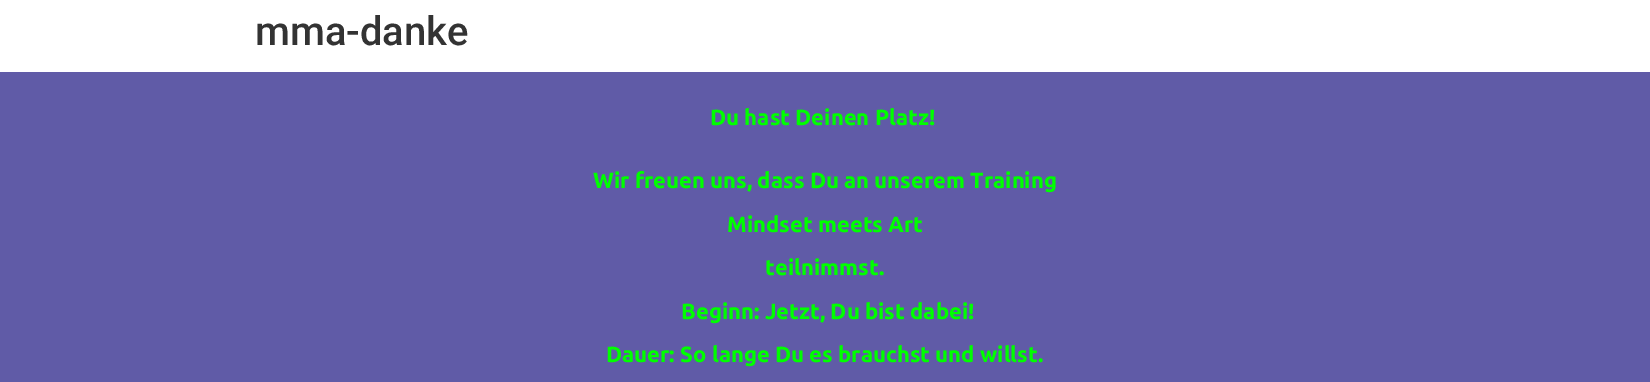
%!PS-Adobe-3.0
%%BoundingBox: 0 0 1650 382
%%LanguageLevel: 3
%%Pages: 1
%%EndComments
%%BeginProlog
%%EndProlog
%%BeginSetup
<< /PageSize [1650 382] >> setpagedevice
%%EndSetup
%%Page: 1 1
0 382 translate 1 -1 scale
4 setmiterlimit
1 setgray
0 0 1650 382 rectfill
0.376 0.357 0.655 setrgbcolor
0 72 1650 310 rectfill
/Roboto-Medium [40 0 0 -40 0 0] selectfont
0.2 setgray
255 45 moveto (mma-danke) show
/Ubuntu-Bold [22 0 0 -22 0 0] selectfont
0 1 0 setrgbcolor
710 125 moveto (Du hast Deinen Platz!) show
593 188 moveto (Wir freuen uns, dass Du an unserem Training) show
727 232 moveto (Mindset meets Art) show
765 275 moveto (teilnimmst.) show
681 319 moveto (Beginn: Jetzt, Du bist dabei!) show
606 362 moveto (Dauer: So lange Du es brauchst und willst.) show
showpage
%%EOF
